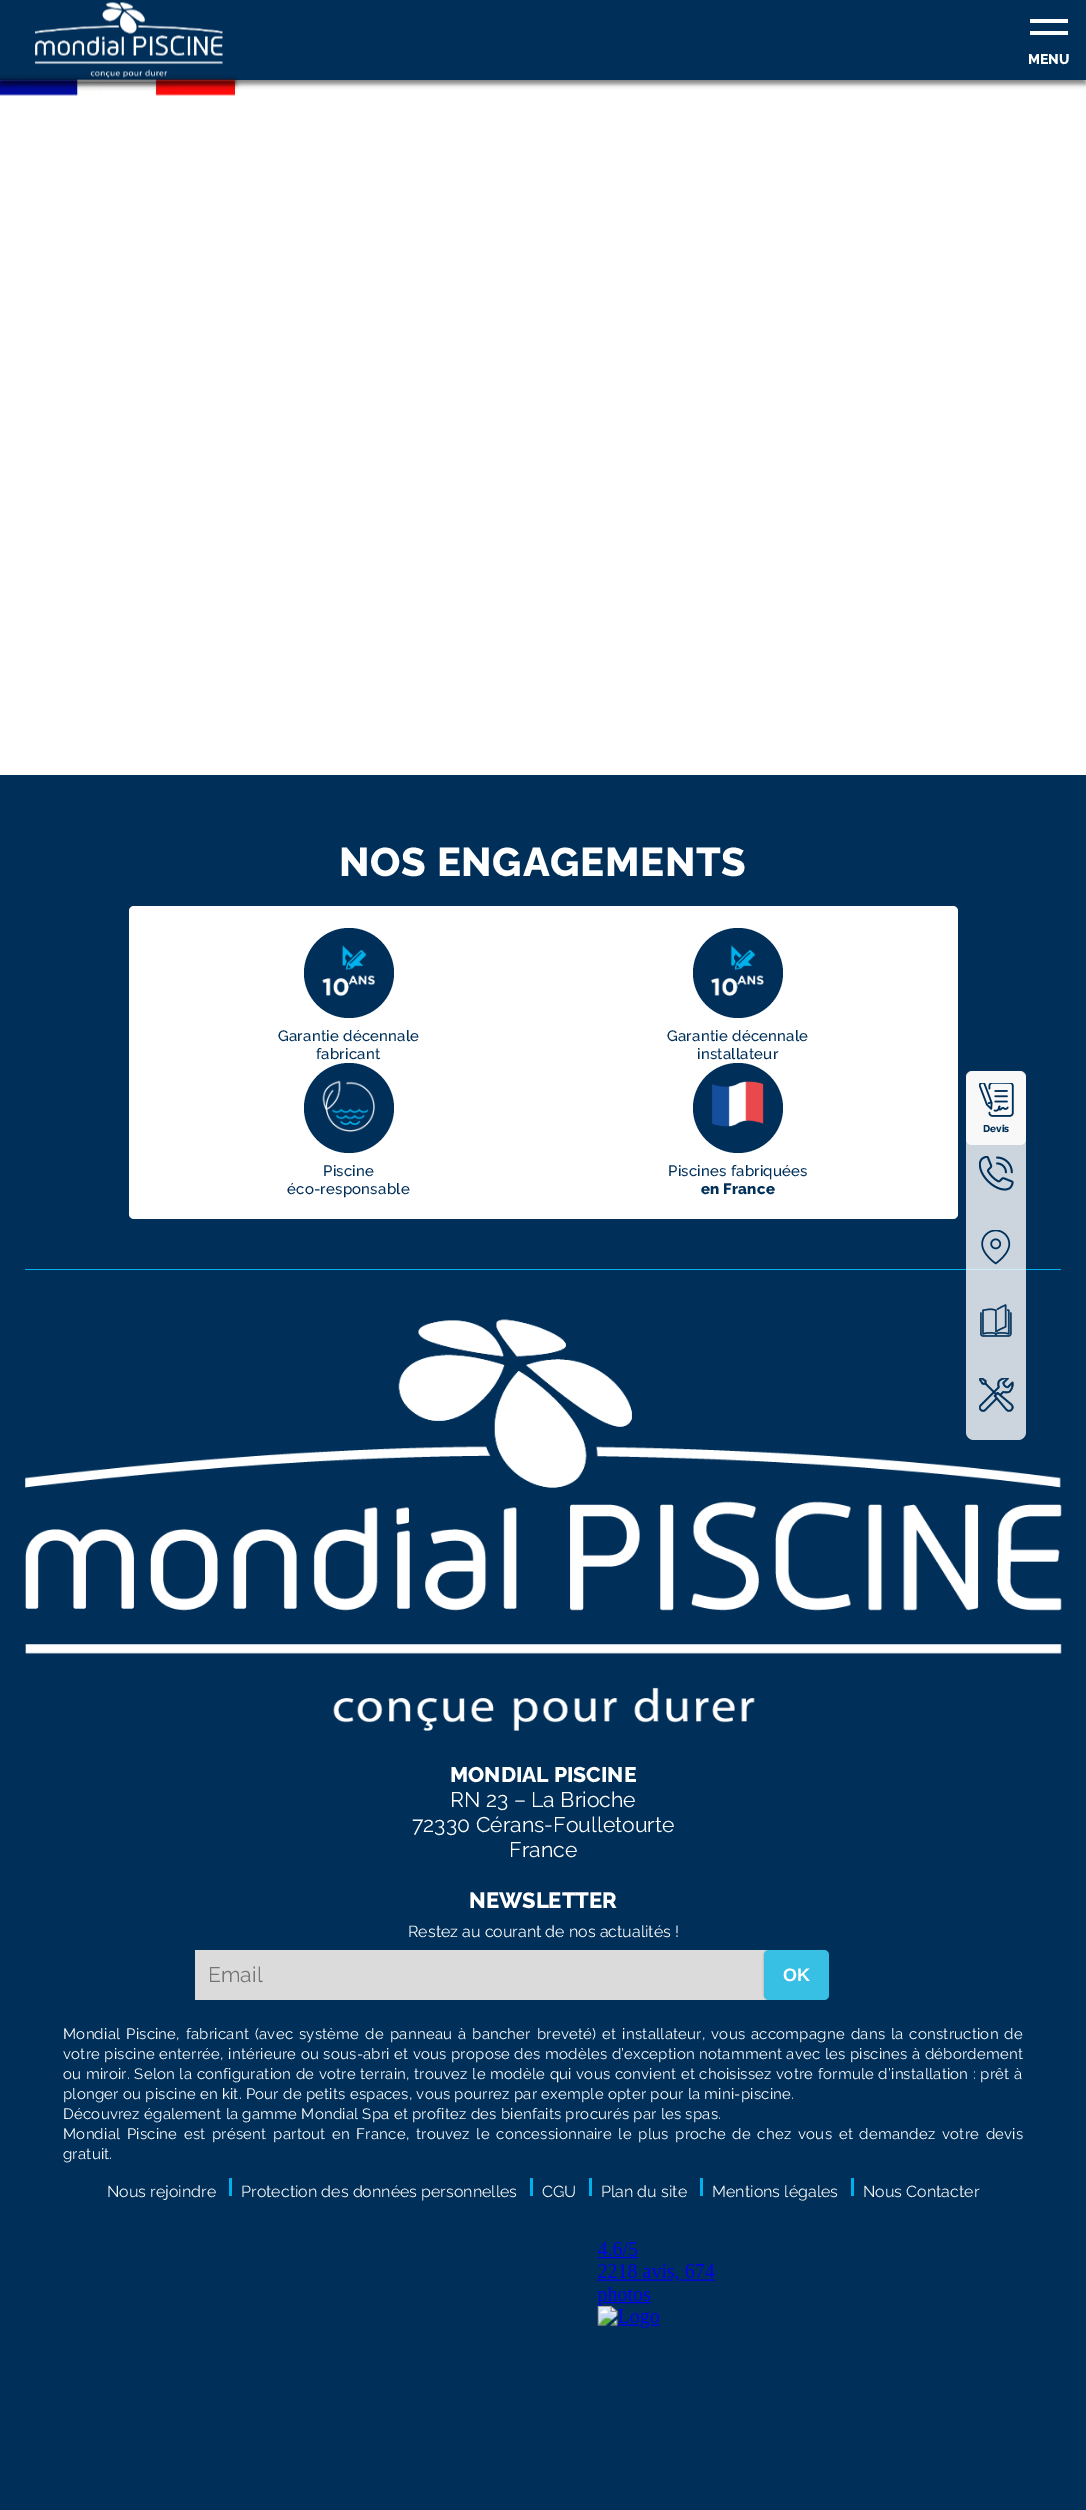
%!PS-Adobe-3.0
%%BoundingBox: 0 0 1086 2510
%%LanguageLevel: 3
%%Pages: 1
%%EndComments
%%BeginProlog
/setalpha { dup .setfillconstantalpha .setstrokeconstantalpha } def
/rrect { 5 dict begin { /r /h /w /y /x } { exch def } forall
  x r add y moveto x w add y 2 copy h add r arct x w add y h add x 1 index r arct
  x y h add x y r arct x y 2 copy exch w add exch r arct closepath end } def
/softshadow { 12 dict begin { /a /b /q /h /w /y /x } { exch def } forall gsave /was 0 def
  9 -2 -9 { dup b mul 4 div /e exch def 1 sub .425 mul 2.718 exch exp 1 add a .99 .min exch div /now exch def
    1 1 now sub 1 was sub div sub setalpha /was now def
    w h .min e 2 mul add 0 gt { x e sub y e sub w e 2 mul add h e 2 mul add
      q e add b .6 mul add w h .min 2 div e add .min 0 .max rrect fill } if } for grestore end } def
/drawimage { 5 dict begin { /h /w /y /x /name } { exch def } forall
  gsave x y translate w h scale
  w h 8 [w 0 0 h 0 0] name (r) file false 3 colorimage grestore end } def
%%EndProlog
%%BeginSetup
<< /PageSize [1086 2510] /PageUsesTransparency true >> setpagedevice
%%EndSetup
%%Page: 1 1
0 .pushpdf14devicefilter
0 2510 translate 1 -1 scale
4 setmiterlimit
1 setgray
0 0 1086 2510 rectfill
0 setgray
0 4 1086 80 0 2.5 0.5 softshadow
0 0.184 0.349 setrgbcolor
0 0 1086 80 rectfill
(images/1.raw) 35 2 188 76 drawimage
1 setgray
1030 19 38 4 rectfill
1030 31 38 4 rectfill
(images/2.raw) 0 79 235 17 drawimage
0 setgray
0 80 235 5 0 2.5 0.7 softshadow
0 0.184 0.349 setrgbcolor
0 775 1086 1735 rectfill
1 setgray
129 906 829 313 5 rrect fill
0 0.184 0.349 setrgbcolor
newpath 349 973 45 0 360 arc closepath fill
(images/3.raw) 322 945 53 51 drawimage
newpath 738 973 45 0 360 arc closepath fill
(images/4.raw) 711 945 53 51 drawimage
newpath 349 1108 45 0 360 arc closepath fill
(images/5.raw) 322 1080 53 52 drawimage
newpath 738 1108 45 0 360 arc closepath fill
(images/6.raw) 712 1081 52 46 drawimage
0 0.694 0.922 setrgbcolor
25 1269 1036 1 rectfill
(images/7.raw) 25 1319 1037 412 drawimage
0.859 setgray
195 1950 573 50 rectfill
0 setgray
763 1950 65 50 5 0.5 0.11 softshadow
0.216 0.749 0.894 setrgbcolor
764 1950 65 50 5 rrect fill
0 0.694 0.922 setrgbcolor
229 2178 3 18 rectfill
530 2178 3 18 rectfill
589 2178 3 18 rectfill
700 2178 3 18 rectfill
851 2178 3 18 rectfill
(images/8.raw) 597 2242 118 86 drawimage
0.867 setgray
966 1071 60 74 6 rrect fill
0.8 setalpha
1 setgray
966 1071 60 369 8 rrect fill
1 setalpha
(images/9.raw) 979 1083 35 34 drawimage
(images/10.raw) 979 1156 35 35 drawimage
(images/11.raw) 981 1230 30 35 drawimage
(images/12.raw) 980 1304 32 33 drawimage
(images/13.raw) 979 1378 35 34 drawimage
/Raleway-ExtraBold [14 0 0 -14 0 0] selectfont
1028 64 moveto (MENU) show
/Raleway-ExtraBold [40 0 0 -40 0 0] selectfont
339 876 moveto 0.75 0 (NOS ENGAGEMENTS) ashow
/Raleway-Medium [15 0 0 -15 0 0] selectfont
0 0.184 0.349 setrgbcolor
278 1041 moveto 0.22 0 (Garantie décennale) ashow
316 1059 moveto 0.22 0 (fabricant) ashow
667 1041 moveto 0.22 0 (Garantie décennale) ashow
697 1059 moveto 0.22 0 (installateur) ashow
323 1176 moveto 0.22 0 (Piscine) ashow
287 1194 moveto 0.22 0 (éco-responsable) ashow
668 1176 moveto 0.22 0 (Piscines fabriquées) ashow
/Raleway-ExtraBold [15 0 0 -15 0 0] selectfont
701 1194 moveto 0.22 0 (en France) ashow
/Raleway-ExtraBold [21.25 0 0 -21.25 0 0] selectfont
1 setgray
450 1782 moveto (MONDIAL PISCINE) show
/Raleway-Regular [21.25 0 0 -21.25 0 0] selectfont
450 1807 moveto (RN 23 – La Brioche) show
412 1832 moveto (72330 Cérans-Foulletourte) show
509 1857 moveto (France) show
/Raleway-ExtraBold [22 0 0 -22 0 0] selectfont
469 1908 moveto (NEWSLETTER) show
/Raleway-Regular [16 0 0 -16 0 0] selectfont
408 1937 moveto (Restez au courant de nos actualités !) show
/Raleway-Regular [21.25 0 0 -21.25 0 0] selectfont
0.459 setgray
208 1982 moveto (Email) show
/LiberationSans-Bold [18 0 0 -18 0 0] selectfont
1 setgray
783 1981 moveto (OK) show
/Raleway-Regular [15 0 0 -15 0 0] selectfont
63 2039 moveto 1.8 0 32 0.22 0 (Mondial Piscine, fabricant \(avec système de panneau à bancher breveté\) et installateur, vous accompagne dans la construction de) awidthshow
63 2059 moveto 0.25 0 32 0.22 0 (votre piscine enterrée, intérieure ou sous-abri et vous propose des modèles d’exception notamment avec les piscines à débordement) awidthshow
63 2079 moveto 0.4 0 32 0.22 0 (ou miroir. Selon la configuration de votre terrain, trouvez le modèle qui vous convient et choisissez votre formule d’installation : prêt à) awidthshow
63 2099 moveto 0.22 0 (plonger ou piscine en kit. Pour de petits espaces, vous pourrez par exemple opter pour la mini-piscine.) ashow
63 2119 moveto 0.22 0 (Découvrez également la gamme Mondial Spa et profitez des bienfaits procurés par les spas.) ashow
63 2139 moveto 2.5 0 32 0.22 0 (Mondial Piscine est présent partout en France, trouvez le concessionnaire le plus proche de chez vous et demandez votre devis) awidthshow
63 2159 moveto 0.22 0 (gratuit.) ashow
/Raleway-Regular [16 0 0 -16 0 0] selectfont
0.969 setgray
107 2197 moveto (Nous rejoindre) show
241 2197 moveto (Protection des données personnelles) show
542 2197 moveto (CGU) show
601 2197 moveto (Plan du site) show
712 2197 moveto (Mentions légales) show
863 2197 moveto (Nous Contacter) show
/Raleway-ExtraBold [10 0 0 -10 0 0] selectfont
0 0.184 0.349 setrgbcolor
983 1132 moveto (Devis) show
.poppdf14devicefilter showpage
%%EOF
